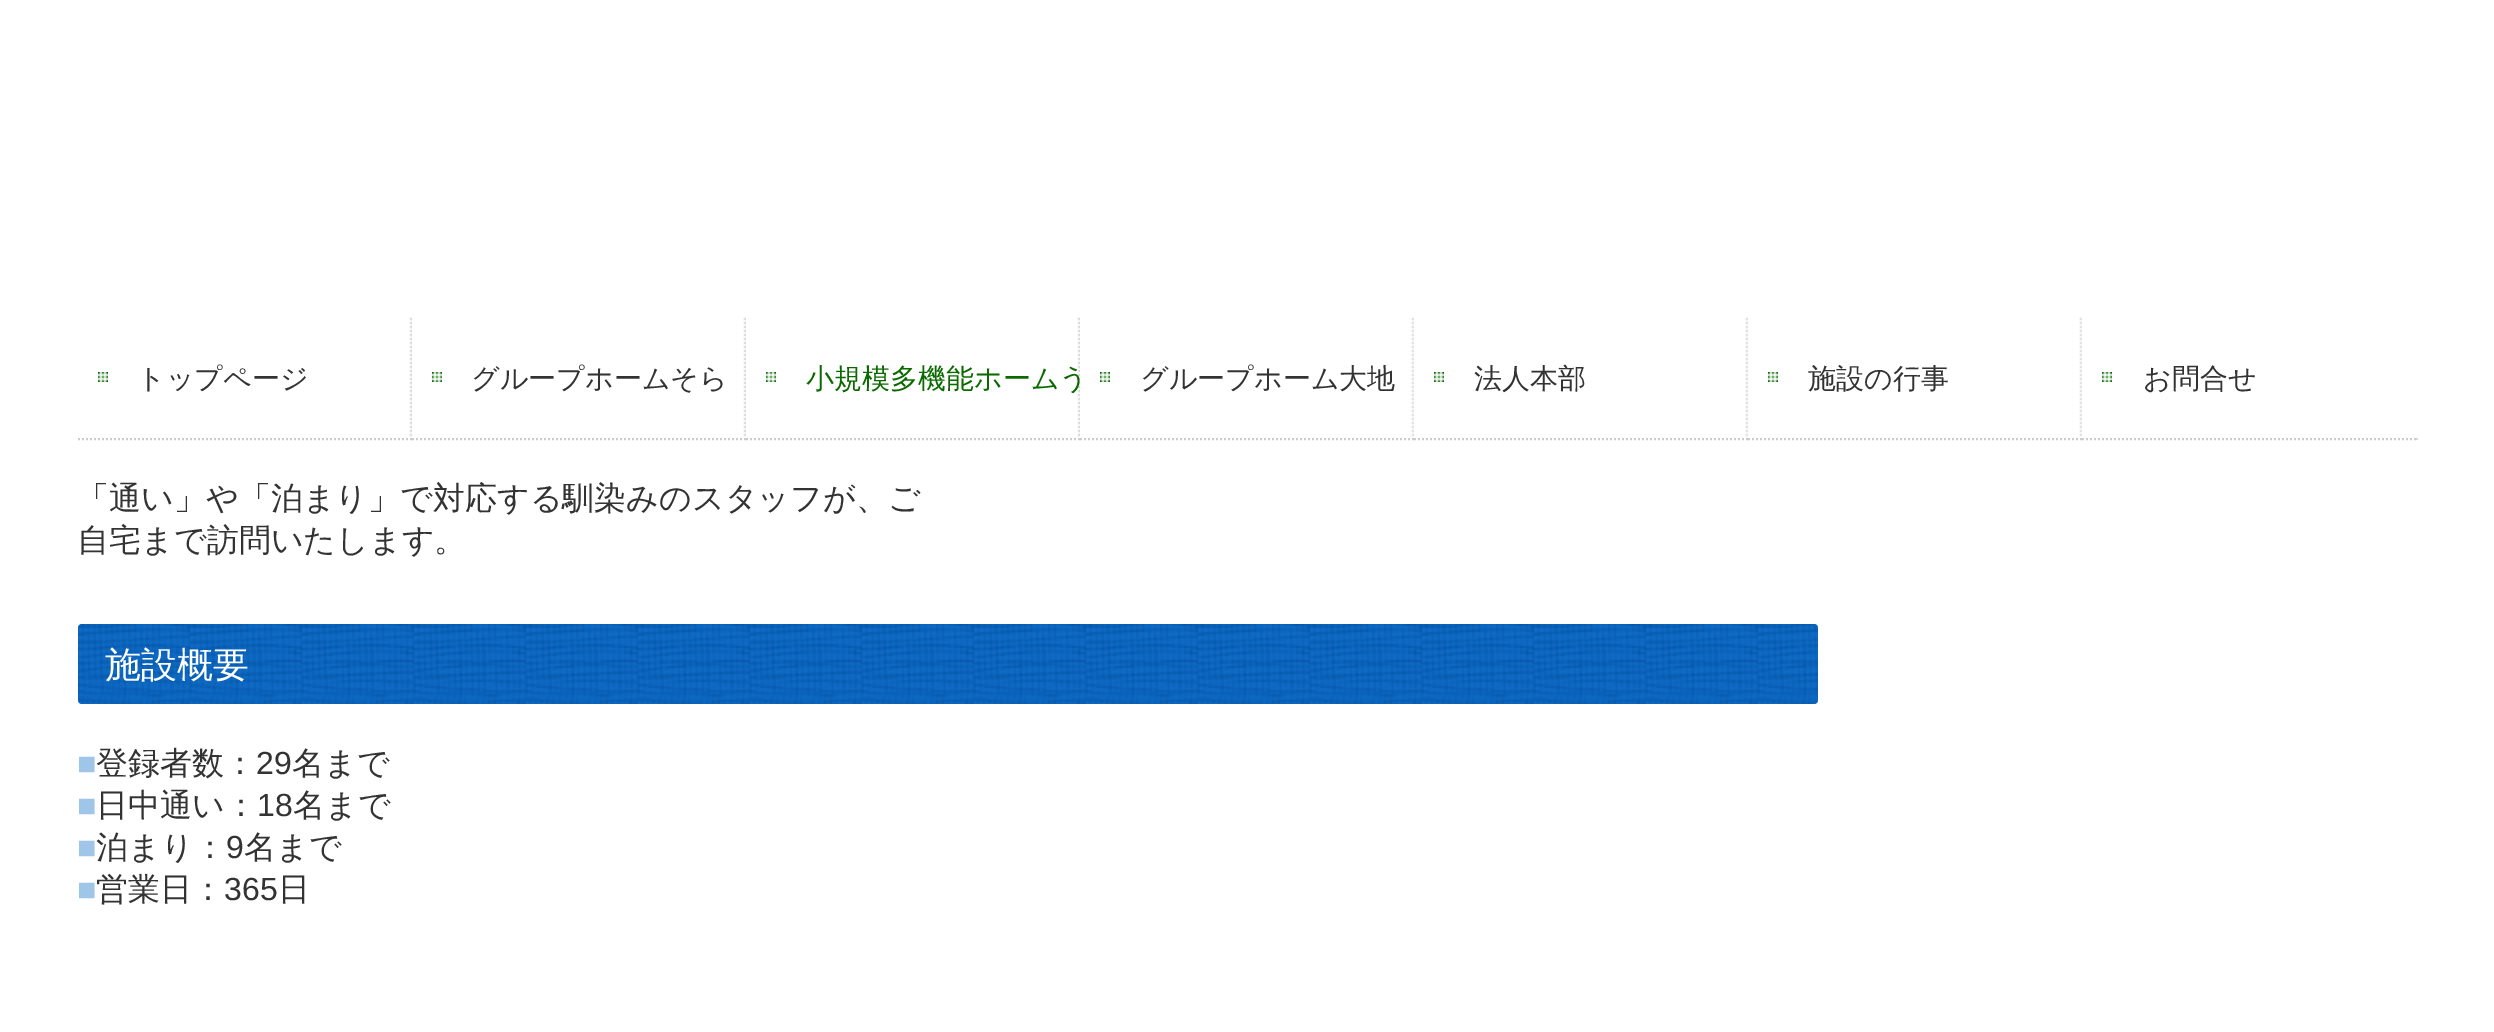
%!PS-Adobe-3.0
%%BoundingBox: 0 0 2494 1032
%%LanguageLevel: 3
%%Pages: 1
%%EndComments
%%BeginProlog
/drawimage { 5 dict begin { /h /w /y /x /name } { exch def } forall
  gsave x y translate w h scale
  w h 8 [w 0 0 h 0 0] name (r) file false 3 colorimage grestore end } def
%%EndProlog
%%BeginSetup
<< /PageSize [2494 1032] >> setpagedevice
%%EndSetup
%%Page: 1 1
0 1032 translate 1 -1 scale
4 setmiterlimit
1 setgray
0 0 2494 1032 rectfill
(images/1.raw) 2416 438 2 2 drawimage
(images/2.raw) 409 317 3 120 drawimage
(images/3.raw) 98 372 10 10 drawimage
0.8 setgray
2 setlinewidth
[2 2] 0 setdash
newpath 78 439 moveto 412 439 lineto stroke
(images/2.raw) 743 317 3 120 drawimage
(images/3.raw) 432 372 10 10 drawimage
newpath 412 439 moveto 746 439 lineto stroke
(images/2.raw) 1077 317 3 120 drawimage
(images/3.raw) 766 372 10 10 drawimage
newpath 746 439 moveto 1080 439 lineto stroke
(images/4.raw) 1411 317 3 120 drawimage
(images/3.raw) 1100 372 10 10 drawimage
newpath 1080 439 moveto 1414 439 lineto stroke
(images/4.raw) 1745 317 3 120 drawimage
(images/3.raw) 1434 372 10 10 drawimage
newpath 1414 439 moveto 1748 439 lineto stroke
(images/4.raw) 2079 317 3 120 drawimage
(images/3.raw) 1768 372 10 10 drawimage
newpath 1748 439 moveto 2082 439 lineto stroke
(images/3.raw) 2102 372 10 10 drawimage
newpath 2082 439 moveto 2416 439 lineto stroke
(images/5.raw) 78 624 1740 80 drawimage
/WenQuanYiZenHei-Medium [28 0 0 -28 0 0] selectfont
0.2 setgray
137 388 moveto (トップページ) show
471 388 moveto (グループホームそら) show
0.039 0.416 0 setrgbcolor
806 388 moveto (小規模多機能ホームう) show
0.2 setgray
1140 388 moveto (グループホーム大地) show
1474 388 moveto (法人本部) show
1808 388 moveto (施設の行事) show
2143 388 moveto (お問合せ) show
/WenQuanYiZenHei-Medium [32 0 0 -32 0 0] selectfont
77 509 moveto (「通い」や「泊まり」で対応する馴染みのスタッフが、ご) show
77 551 moveto (自宅まで訪問いたします。) show
/WenQuanYiZenHei-Medium [36 0 0 -36 0 0] selectfont
1 setgray
105 677 moveto (施設概要) show
/LiberationSans-Regular [32 0 0 -32 0 0] selectfont
0.624 0.773 0.914 setrgbcolor
77 774 moveto (■) show
/WenQuanYiZenHei-Medium [32 0 0 -32 0 0] selectfont
0.2 setgray
96 774 moveto (登録者数：) show
/LiberationSans-Regular [32 0 0 -32 0 0] selectfont
256 774 moveto (29) show
/WenQuanYiZenHei-Medium [32 0 0 -32 0 0] selectfont
292 774 moveto (名まで) show
/LiberationSans-Regular [32 0 0 -32 0 0] selectfont
0.624 0.773 0.914 setrgbcolor
77 816 moveto (■) show
/WenQuanYiZenHei-Medium [32 0 0 -32 0 0] selectfont
0.2 setgray
96 816 moveto (日中通い：) show
/LiberationSans-Regular [32 0 0 -32 0 0] selectfont
257 816 moveto (18) show
/WenQuanYiZenHei-Medium [32 0 0 -32 0 0] selectfont
293 816 moveto (名まで) show
/LiberationSans-Regular [32 0 0 -32 0 0] selectfont
0.624 0.773 0.914 setrgbcolor
77 858 moveto (■) show
/WenQuanYiZenHei-Medium [32 0 0 -32 0 0] selectfont
0.2 setgray
96 858 moveto (泊まり：) show
/LiberationSans-Regular [32 0 0 -32 0 0] selectfont
226 858 moveto (9) show
/WenQuanYiZenHei-Medium [32 0 0 -32 0 0] selectfont
244 858 moveto (名まで) show
/LiberationSans-Regular [32 0 0 -32 0 0] selectfont
0.624 0.773 0.914 setrgbcolor
77 900 moveto (■) show
/WenQuanYiZenHei-Medium [32 0 0 -32 0 0] selectfont
0.2 setgray
96 900 moveto (営業日：) show
/LiberationSans-Regular [32 0 0 -32 0 0] selectfont
224 900 moveto (365) show
/WenQuanYiZenHei-Medium [32 0 0 -32 0 0] selectfont
278 900 moveto (日) show
showpage
%%EOF
